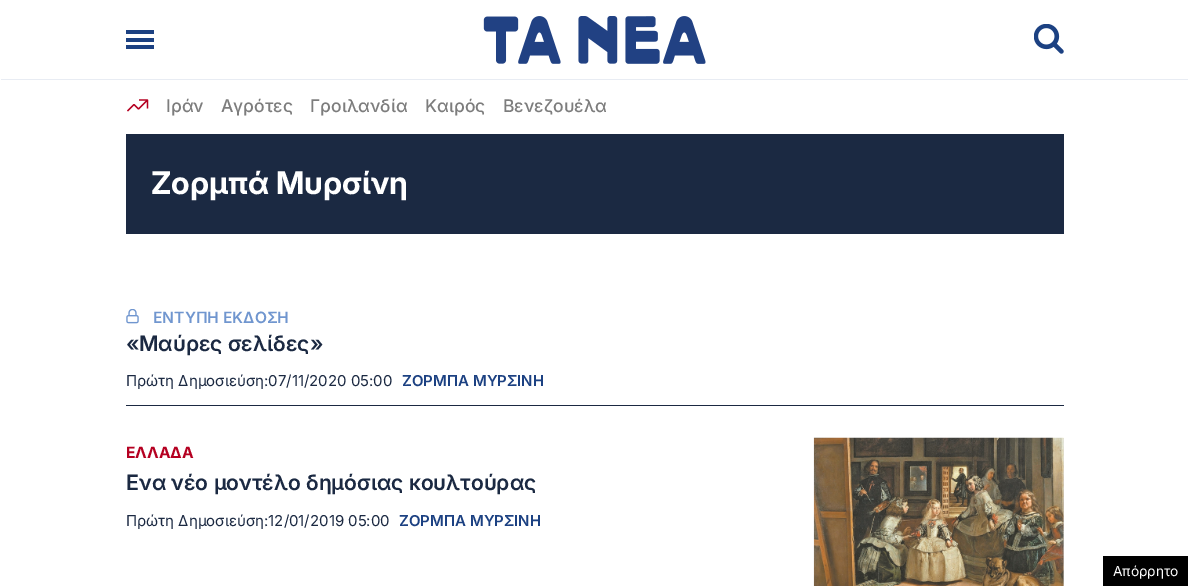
%!PS-Adobe-3.0
%%BoundingBox: 0 0 1188 586
%%LanguageLevel: 3
%%Pages: 1
%%EndComments
%%BeginProlog
/drawimage { 5 dict begin { /h /w /y /x /name } { exch def } forall
  gsave x y translate w h scale
  w h 8 [w 0 0 h 0 0] name (r) file false 3 colorimage grestore end } def
%%EndProlog
%%BeginSetup
<< /PageSize [1188 586] >> setpagedevice
%%EndSetup
%%Page: 1 1
0 586 translate 1 -1 scale
4 setmiterlimit
1 setgray
0 0 1188 586 rectfill
(images/1.raw) 483 16 223 48 drawimage
0.91 0.925 0.953 setrgbcolor
1 79 1187 1 rectfill
0.11 0.255 0.51 setrgbcolor
126 30 28 4 rectfill
126 38 28 4 rectfill
126 45 28 4 rectfill
(images/2.raw) 1034 24 30 30 drawimage
0.71 0 0.129 setrgbcolor
1.2 setlinewidth
1 setlinejoin
newpath 127.5 111 moveto 134 104.5 lineto 138.5 109 lineto 147.5 100 lineto 139 100 moveto 147.5 100 lineto 147.5 108.5 lineto stroke
0.106 0.161 0.259 setrgbcolor
126 134 938 100 rectfill
126 405 938 1 rectfill
(images/3.raw) 126 309 13 15 drawimage
0.867 setgray
1063 438 1 148 rectfill
(images/4.raw) 813 437 251 149 drawimage
0 setgray
1103 556 85 30 rectfill
/Inter-Medium [17.5 0 0 -17.5 0 0] selectfont
0.49 setgray
166 112 moveto (Ιράν) show
221 112 moveto (Αγρότες) show
310 112 moveto (Γροιλανδία) show
425 112 moveto (Καιρός) show
503 112 moveto (Βενεζουέλα) show
/Inter-Bold [31.25 0 0 -31.25 0 0] selectfont
1 setgray
151 194 moveto (Ζορμπά Μυρσίνη) show
/Inter-SemiBold [15.6 0 0 -15.6 0 0] selectfont
0.439 0.588 0.812 setrgbcolor
153 323 moveto (ΕΝΤΥΠΗ ΕΚΔΟΣΗ) show
/Inter-SemiBold [21.25 0 0 -21.25 0 0] selectfont
0.106 0.161 0.259 setrgbcolor
126 351 moveto («) show
/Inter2-SemiBold [21.25 0 0 -21.25 0 0] selectfont
139 351 moveto (Μαύρες σελίδες) show
/Inter-SemiBold [21.25 0 0 -21.25 0 0] selectfont
310 351 moveto (») show
/Inter-Regular [15 0 0 -15 0 0] selectfont
126 386 moveto (Πρώτη Δημοσιεύση:07/11/2020 05:00) show
/Inter-SemiBold [15 0 0 -15 0 0] selectfont
0.11 0.255 0.51 setrgbcolor
402 386 moveto (ΖΟΡΜΠΑ ΜΥΡΣΙΝΗ) show
/Inter2-Bold [15.6 0 0 -15.6 0 0] selectfont
0.71 0 0.129 setrgbcolor
126 458 moveto (ΕΛΛΑΔΑ) show
/Inter2-SemiBold [21.25 0 0 -21.25 0 0] selectfont
0.106 0.161 0.259 setrgbcolor
126 490 moveto (Ενα νέο μοντέλο δημόσιας κουλτούρας) show
/Inter-Regular [15 0 0 -15 0 0] selectfont
126 526 moveto (Πρώτη Δημοσιεύση:12/01/2019 05:00) show
/Inter-SemiBold [15 0 0 -15 0 0] selectfont
0.11 0.255 0.51 setrgbcolor
399 526 moveto (ΖΟΡΜΠΑ ΜΥΡΣΙΝΗ) show
/Inter-Regular [13.75 0 0 -13.75 0 0] selectfont
1 setgray
1113 576 moveto (Απόρρητο) show
showpage
%%EOF
